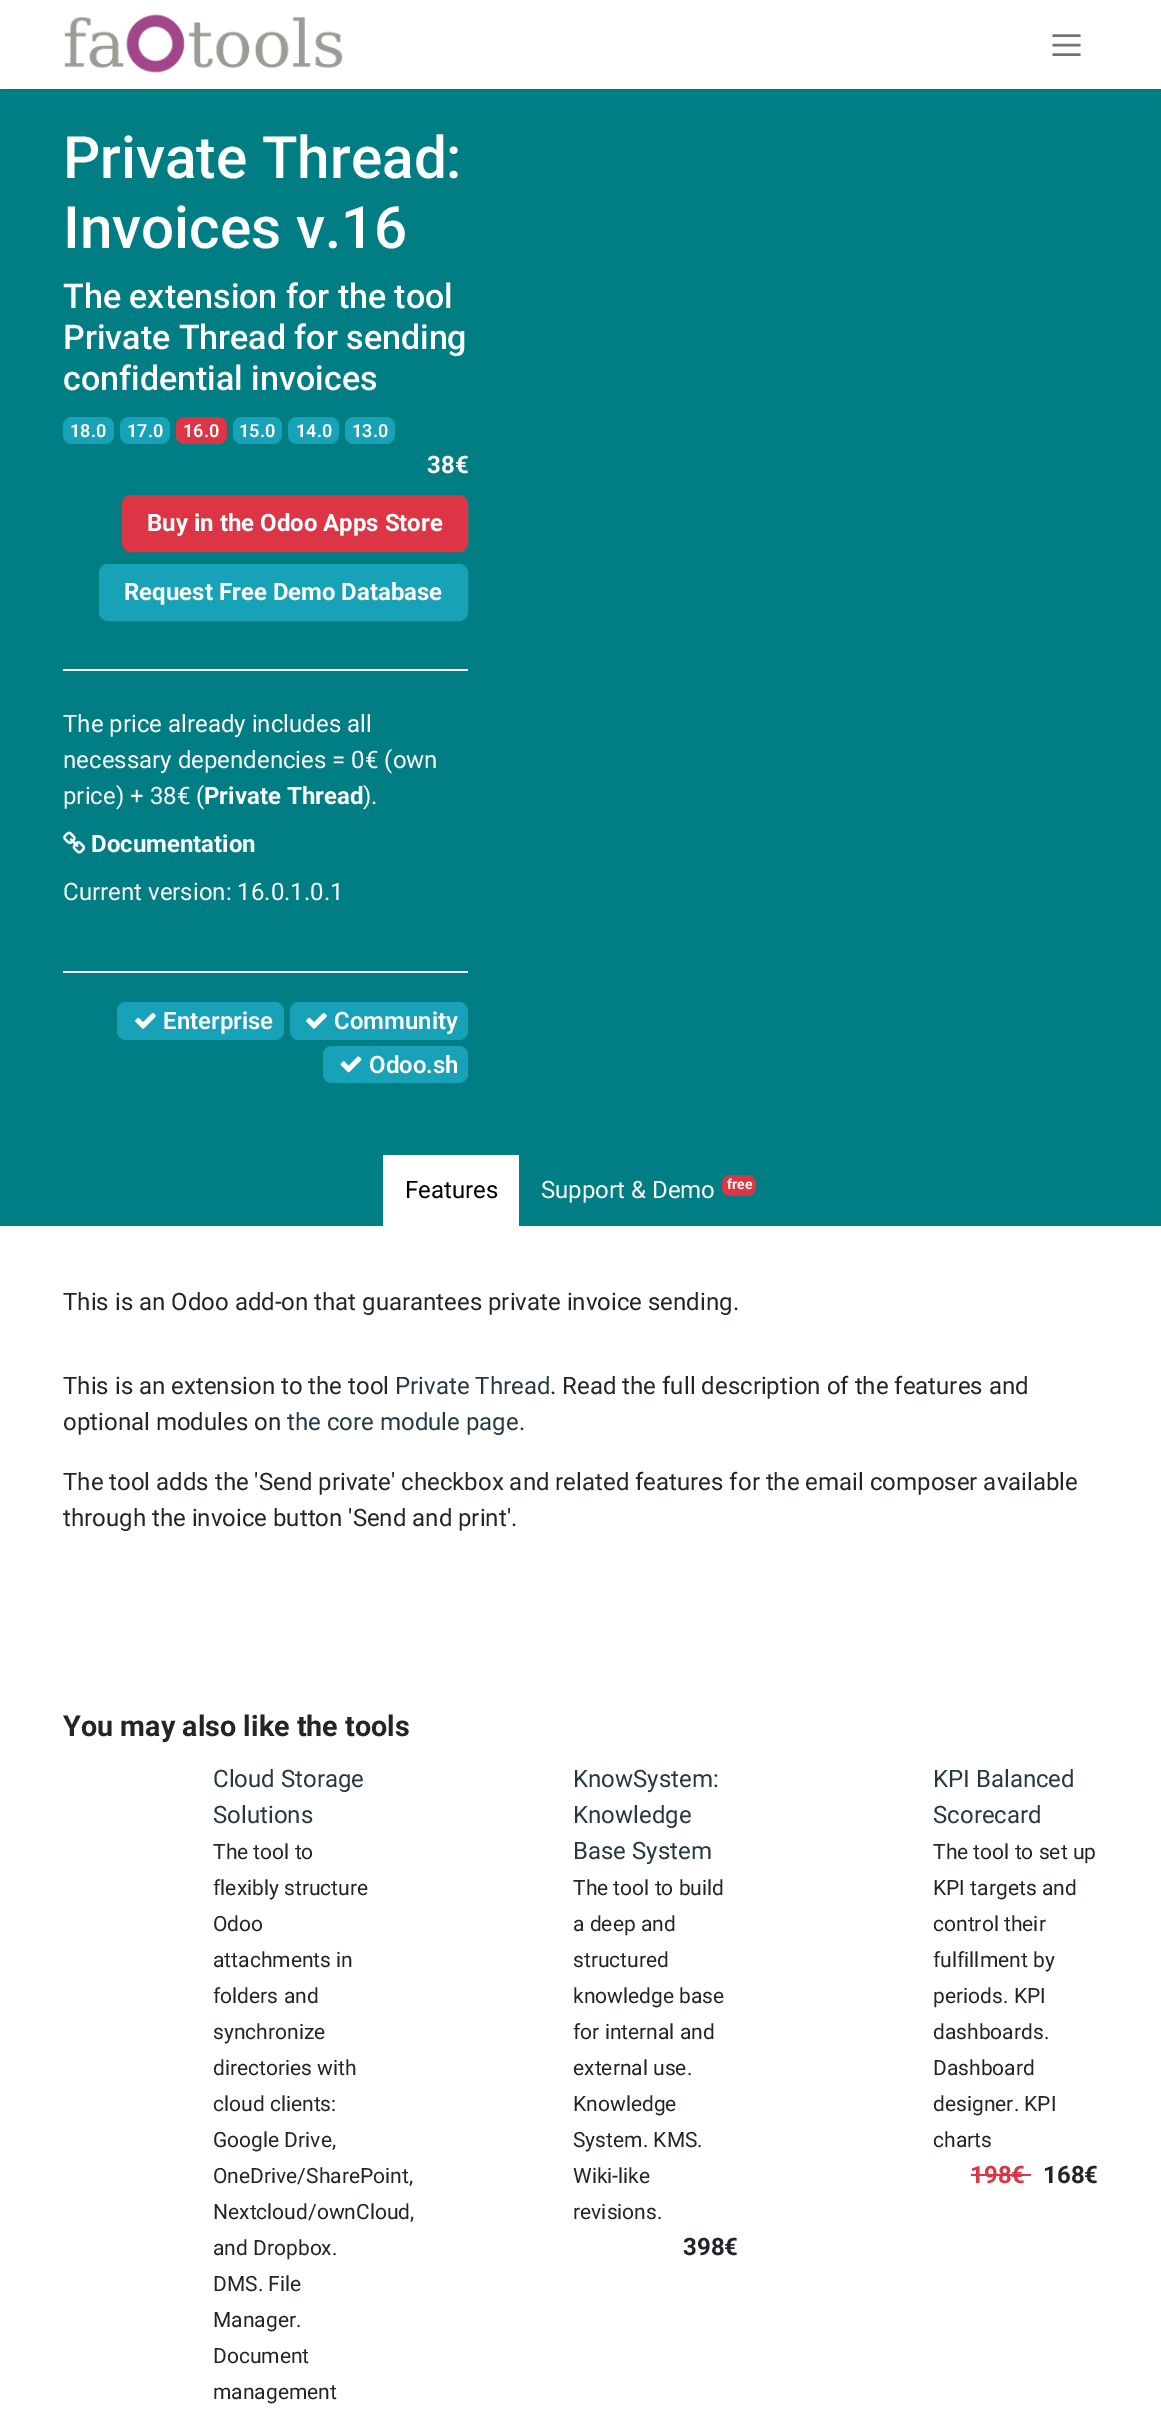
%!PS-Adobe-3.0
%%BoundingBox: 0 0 1161 2425
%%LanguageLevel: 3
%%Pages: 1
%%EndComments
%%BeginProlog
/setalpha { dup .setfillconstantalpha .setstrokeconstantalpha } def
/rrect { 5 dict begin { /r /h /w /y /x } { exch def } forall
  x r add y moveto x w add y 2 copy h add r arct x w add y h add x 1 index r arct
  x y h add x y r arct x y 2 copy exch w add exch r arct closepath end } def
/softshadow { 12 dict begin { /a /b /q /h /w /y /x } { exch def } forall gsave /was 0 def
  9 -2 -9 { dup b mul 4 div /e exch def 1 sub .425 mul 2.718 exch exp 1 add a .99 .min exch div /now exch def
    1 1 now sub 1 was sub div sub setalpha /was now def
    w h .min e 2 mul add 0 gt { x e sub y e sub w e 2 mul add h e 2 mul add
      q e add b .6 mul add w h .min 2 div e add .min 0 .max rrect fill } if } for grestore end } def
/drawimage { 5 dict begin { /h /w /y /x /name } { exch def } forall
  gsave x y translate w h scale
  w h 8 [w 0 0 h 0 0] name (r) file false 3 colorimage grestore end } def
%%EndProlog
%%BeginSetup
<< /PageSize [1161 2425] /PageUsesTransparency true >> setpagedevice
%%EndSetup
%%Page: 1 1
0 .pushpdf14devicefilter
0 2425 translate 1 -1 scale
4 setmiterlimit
1 setgray
0 0 1161 2425 rectfill
0.004 0.494 0.518 setrgbcolor
0 89 1161 1137 rectfill
0 setgray
0 2 1161 88 0 2 0.1 softshadow
1 setgray
0 0 1161 89 rectfill
(images/1.raw) 64 14 279 59 drawimage
0.451 setgray
2.4 setlinewidth
1 setlinecap
newpath 1053.5 35.5 moveto 1079.5 35.5 lineto 1053.5 45 moveto 1079.5 45 lineto 1053.5 54.5 moveto 1079.5 54.5 lineto stroke
0.09 0.635 0.722 setrgbcolor
63 417 51 27 9 rrect fill
120 417 50 27 9 rrect fill
0.863 0.208 0.271 setrgbcolor
176 417 51 27 9 rrect fill
0.09 0.635 0.722 setrgbcolor
233 417 49 27 9 rrect fill
288 417 51 27 9 rrect fill
345 417 50 27 9 rrect fill
0.863 0.208 0.271 setrgbcolor
123 496 344 55 8 rrect gsave fill grestore
2 setlinewidth
0 setlinecap
stroke
0.09 0.635 0.722 setrgbcolor
100 565 367 55 8 rrect gsave fill grestore
stroke
1 setgray
63 669 405 2 rectfill
(images/2.raw) 63 831 23 23 drawimage
63 971 405 2 rectfill
0.09 0.635 0.722 setrgbcolor
117 1002 167 38 9 rrect fill
(images/3.raw) 135 1012 21 17 drawimage
290 1002 178 38 9 rrect fill
(images/3.raw) 306 1012 21 17 drawimage
323 1046 145 37 9 rrect fill
(images/4.raw) 340 1056 22 17 drawimage
1 setgray
383 1155 136 71 rectfill
0.863 0.208 0.271 setrgbcolor
722 1175 34 21 9 rrect fill
971 2174 60 2 rectfill
/Roboto-Medium [58.5 0 0 -58.5 0 0] selectfont
1 setgray
63 178 moveto (Private Thread:) show
63 248 moveto (Invoices v.16) show
/Roboto-Medium [34 0 0 -34 0 0] selectfont
63 308 moveto (The extension for the tool) show
63 349 moveto (Private Thread for sending) show
63 390 moveto (confidential invoices) show
/Roboto-SemiBold [18 0 0 -18 0 0] selectfont
70 437 moveto (18.0) show
127 437 moveto (17.0) show
183 437 moveto (16.0) show
239 437 moveto (15.0) show
296 437 moveto (14.0) show
352 437 moveto (13.0) show
/Roboto-Bold [24 0 0 -24 0 0] selectfont
427 473 moveto (38€) show
147 531 moveto (Buy in the Odoo Apps Store) show
124 600 moveto (Request Free Demo Database) show
/Roboto-Regular [24 0 0 -24 0 0] selectfont
63 732 moveto (The price already includes all) show
63 768 moveto (necessary dependencies = 0€ \(own) show
63 804 moveto (price\) + 38€ \() show
/Roboto-Bold [24 0 0 -24 0 0] selectfont
204 804 moveto (Private Thread) show
/Roboto-Regular [24 0 0 -24 0 0] selectfont
363 804 moveto (\).) show
/Roboto-Bold [24 0 0 -24 0 0] selectfont
91 852 moveto (Documentation) show
/Roboto-Regular [24 0 0 -24 0 0] selectfont
63 900 moveto (Current version: 16.0.1.0.1) show
/Roboto-SemiBold [24 0 0 -24 0 0] selectfont
163 1029 moveto (Enterprise) show
334 1029 moveto (Community) show
369 1073 moveto (Odoo.sh) show
/Roboto-Regular [24 0 0 -24 0 0] selectfont
0 setgray
405 1198 moveto (Features) show
1 setgray
541 1198 moveto (Support & Demo) show
/Roboto-SemiBold [14 0 0 -14 0 0] selectfont
727 1189 moveto (free) show
/Roboto-Regular [24 0 0 -24 0 0] selectfont
0.129 0.145 0.161 setrgbcolor
63 1310 moveto (This is an Odoo add-on that guarantees private invoice sending.) show
63 1394 moveto (This is an extension to the tool) show
0.141 0.216 0.259 setrgbcolor
395 1394 moveto (Private Thread) show
0.129 0.145 0.161 setrgbcolor
550 1394 moveto (. Read the full description of the features and) show
63 1430 moveto (optional modules on) show
0.141 0.216 0.259 setrgbcolor
287 1430 moveto (the core module page.) show
0.129 0.145 0.161 setrgbcolor
63 1490 moveto (The tool adds the 'Send private' checkbox and related features for the email composer available) show
63 1526 moveto (through the invoice button 'Send and print'.) show
/Roboto-Bold [28.75 0 0 -28.75 0 0] selectfont
63 1736 moveto (You may also like the tools) show
/Roboto-Regular [24 0 0 -24 0 0] selectfont
0.141 0.216 0.259 setrgbcolor
213 1787 moveto (Cloud Storage) show
213 1823 moveto (Solutions) show
/Roboto-Regular [21 0 0 -21 0 0] selectfont
0.129 0.145 0.161 setrgbcolor
213 1859 moveto (The tool to) show
213 1895 moveto (flexibly structure) show
213 1931 moveto (Odoo) show
213 1967 moveto (attachments in) show
213 2003 moveto (folders and) show
213 2039 moveto (synchronize) show
213 2075 moveto (directories with) show
213 2111 moveto (cloud clients:) show
213 2147 moveto (Google Drive,) show
213 2183 moveto (OneDrive/SharePoint,) show
213 2219 moveto (Nextcloud/ownCloud,) show
213 2255 moveto (and Dropbox.) show
213 2291 moveto (DMS. File) show
213 2327 moveto (Manager.) show
213 2363 moveto (Document) show
213 2399 moveto (management) show
/Roboto-Regular [24 0 0 -24 0 0] selectfont
0.141 0.216 0.259 setrgbcolor
573 1787 moveto (KnowSystem:) show
573 1823 moveto (Knowledge) show
573 1859 moveto (Base System) show
/Roboto-Regular [21 0 0 -21 0 0] selectfont
0.129 0.145 0.161 setrgbcolor
573 1895 moveto (The tool to build) show
573 1931 moveto (a deep and) show
573 1967 moveto (structured) show
573 2003 moveto (knowledge base) show
573 2039 moveto (for internal and) show
573 2075 moveto (external use.) show
573 2111 moveto (Knowledge) show
573 2147 moveto (System. KMS.) show
573 2183 moveto (Wiki-like) show
573 2219 moveto (revisions.) show
/Roboto-Bold [24 0 0 -24 0 0] selectfont
683 2255 moveto (398€) show
/Roboto-Regular [24 0 0 -24 0 0] selectfont
0.141 0.216 0.259 setrgbcolor
933 1787 moveto (KPI Balanced) show
933 1823 moveto (Scorecard) show
/Roboto-Regular [21 0 0 -21 0 0] selectfont
0.129 0.145 0.161 setrgbcolor
933 1859 moveto (The tool to set up) show
933 1895 moveto (KPI targets and) show
933 1931 moveto (control their) show
933 1967 moveto (fulfillment by) show
933 2003 moveto (periods. KPI) show
933 2039 moveto (dashboards.) show
933 2075 moveto (Dashboard) show
933 2111 moveto (designer. KPI) show
933 2147 moveto (charts) show
/Roboto-Bold [24 0 0 -24 0 0] selectfont
0.863 0.208 0.271 setrgbcolor
970 2183 moveto (198€) show
0.129 0.145 0.161 setrgbcolor
1043 2183 moveto (168€) show
.poppdf14devicefilter showpage
%%EOF
